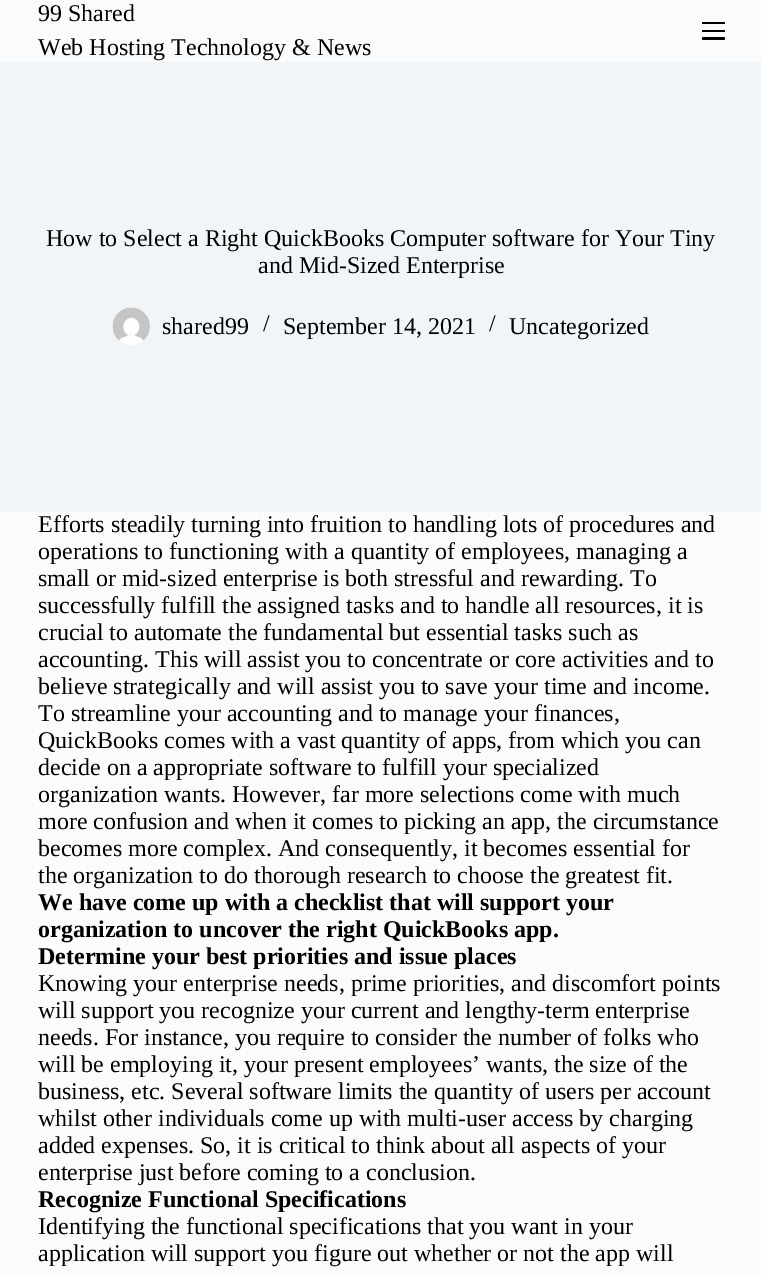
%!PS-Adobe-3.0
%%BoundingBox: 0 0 761 1275
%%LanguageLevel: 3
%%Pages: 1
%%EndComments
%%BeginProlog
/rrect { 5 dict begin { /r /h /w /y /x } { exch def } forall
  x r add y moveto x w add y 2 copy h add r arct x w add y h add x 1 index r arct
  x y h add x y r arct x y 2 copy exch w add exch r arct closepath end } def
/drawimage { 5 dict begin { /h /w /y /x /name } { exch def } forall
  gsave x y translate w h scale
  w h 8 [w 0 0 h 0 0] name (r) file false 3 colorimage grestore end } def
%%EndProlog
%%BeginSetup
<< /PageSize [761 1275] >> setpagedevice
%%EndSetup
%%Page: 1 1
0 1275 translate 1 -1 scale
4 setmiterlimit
0.98 0.984 0.988 setrgbcolor
0 0 761 1275 rectfill
0 setgray
702 22 23 2 1 rrect fill
702 30 23 2 1 rrect fill
702 37 23 3 1.5 rrect fill
0.949 0.961 0.969 setrgbcolor
0 62 761 450 rectfill
(images/1.raw) 112 307 38 38 drawimage
/LiberationSerif-Regular [24 0 0 -24 0 0] selectfont
0 setgray
38 21 moveto (99 Shared) show
38 55 moveto (Web Hosting Technology & News) show
46 246 moveto (How to Select a Right QuickBooks Computer software for Your Tiny) show
258 273 moveto (and Mid-Sized Enterprise) show
162 334 moveto (shared99) show
263 331 moveto (/) show
283 334 moveto (September 14, 2021) show
489 331 moveto (/) show
509 334 moveto (Uncategorized) show
38 532 moveto (Efforts steadily turning into fruition to handling lots of procedures and) show
38 559 moveto (operations to functioning with a quantity of employees, managing a) show
38 586 moveto (small or mid-sized enterprise is both stressful and rewarding. To) show
38 613 moveto (successfully fulfill the assigned tasks and to handle all resources, it is) show
38 640 moveto (crucial to automate the fundamental but essential tasks such as) show
38 667 moveto (accounting. This will assist you to concentrate or core activities and to) show
38 694 moveto (believe strategically and will assist you to save your time and income.) show
38 721 moveto (To streamline your accounting and to manage your finances,) show
38 748 moveto (QuickBooks comes with a vast quantity of apps, from which you can) show
38 775 moveto (decide on a appropriate software to fulfill your specialized) show
38 802 moveto (organization wants. However, far more selections come with much) show
38 829 moveto (more confusion and when it comes to picking an app, the circumstance) show
38 856 moveto (becomes more complex. And consequently, it becomes essential for) show
38 883 moveto (the organization to do thorough research to choose the greatest fit.) show
/LiberationSerif-Bold [24 0 0 -24 0 0] selectfont
38 910 moveto (We have come up with a checklist that will support your) show
38 937 moveto (organization to uncover the right QuickBooks app.) show
38 964 moveto (Determine your best priorities and issue places) show
/LiberationSerif-Regular [24 0 0 -24 0 0] selectfont
38 991 moveto (Knowing your enterprise needs, prime priorities, and discomfort points) show
38 1018 moveto (will support you recognize your current and lengthy-term enterprise) show
38 1045 moveto (needs. For instance, you require to consider the number of folks who) show
38 1072 moveto (will be employing it, your present employees’ wants, the size of the) show
38 1099 moveto (business, etc. Several software limits the quantity of users per account) show
38 1126 moveto (whilst other individuals come up with multi-user access by charging) show
38 1153 moveto (added expenses. So, it is critical to think about all aspects of your) show
38 1180 moveto (enterprise just before coming to a conclusion.) show
/LiberationSerif-Bold [24 0 0 -24 0 0] selectfont
38 1207 moveto (Recognize Functional Specifications) show
/LiberationSerif-Regular [24 0 0 -24 0 0] selectfont
38 1234 moveto (Identifying the functional specifications that you want in your) show
38 1261 moveto (application will support you figure out whether or not the app will) show
showpage
%%EOF
